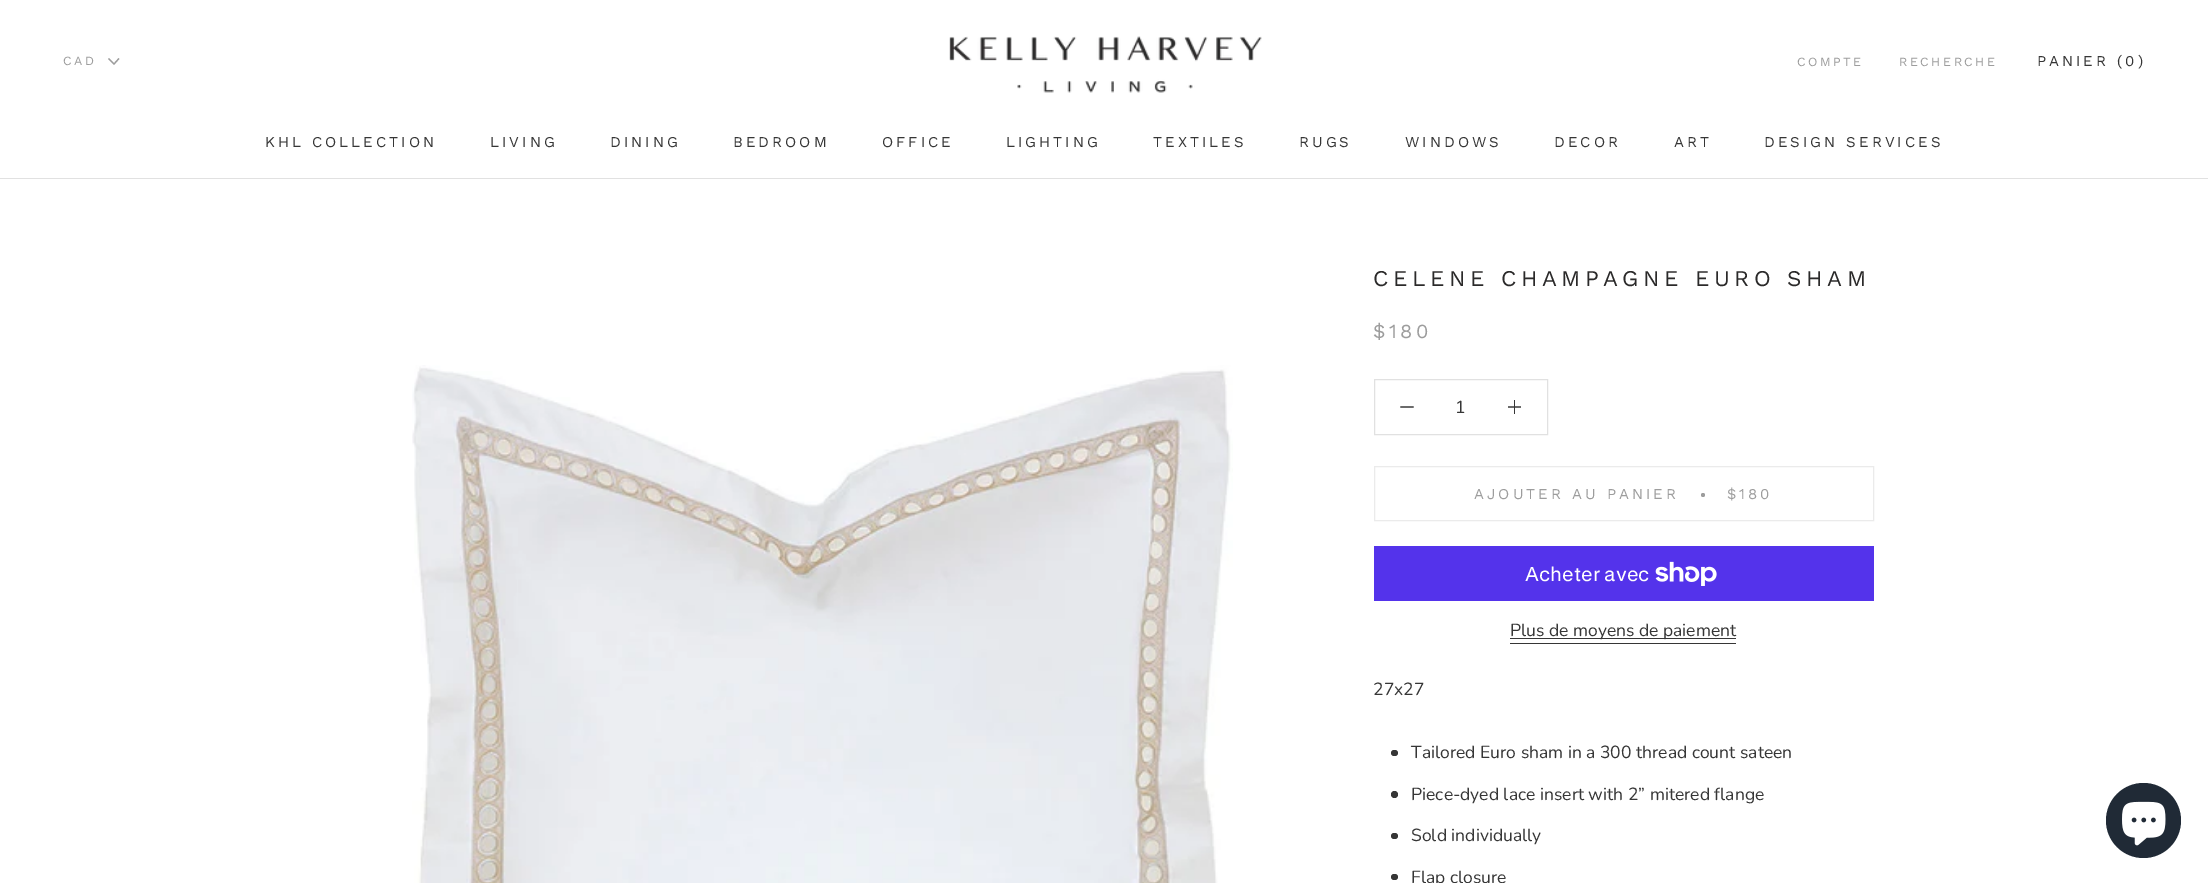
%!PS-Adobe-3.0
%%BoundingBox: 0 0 2208 883
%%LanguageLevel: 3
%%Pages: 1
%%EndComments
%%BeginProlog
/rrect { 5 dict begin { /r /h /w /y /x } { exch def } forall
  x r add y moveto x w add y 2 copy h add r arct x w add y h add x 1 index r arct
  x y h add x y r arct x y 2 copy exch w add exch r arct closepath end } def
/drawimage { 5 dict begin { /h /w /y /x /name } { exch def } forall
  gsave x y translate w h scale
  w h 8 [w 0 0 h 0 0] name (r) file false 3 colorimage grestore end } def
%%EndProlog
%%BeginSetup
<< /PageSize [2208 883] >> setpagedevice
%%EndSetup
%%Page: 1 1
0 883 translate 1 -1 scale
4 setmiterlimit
1 setgray
0 0 2208 883 rectfill
0.882 setgray
0 178 2208 1 rectfill
(images/1.raw) 949 36 313 57 drawimage
0.616 setgray
1.2 setlinewidth
2 setlinecap
newpath 118.5 59 moveto 114 64 lineto 109 59 lineto stroke
(images/2.raw) 412 365 821 518 drawimage
0.882 setgray
1 setlinewidth
0 setlinecap
1374.5 379.5 173 55 rectstroke
0.212 setgray
1.3 setlinewidth
2 setlinecap
newpath 1401 407 moveto 1413 407 lineto stroke
1514 400 1 14 rectfill
gsave
1508 400 13 14 rectclip
newpath 1508.5 407 moveto 1520.5 407 lineto stroke
grestore
0.922 setgray
1 setlinewidth
0 setlinecap
1374.5 466.5 499 54 rectstroke
0.616 setgray
newpath 1703 495 2 0 360 arc closepath fill
0.329 0.2 0.922 setrgbcolor
1374 546 500 55 rectfill
(images/3.raw) 1655 561 62 25 drawimage
0.212 setgray
1510 638 226 1 rectfill
1510 643 226 1 rectfill
1391 750 7 6 3 rrect fill
newpath 1394.5 794.5 3.5 0 360 arc closepath fill
1391 833 7 6 3 rrect fill
1391 874 7 6 3 rrect fill
0.125 0.165 0.212 setrgbcolor
newpath 2143.5 820.5 37.5 0 360 arc closepath fill
(images/4.raw) 2122 801 44 45 drawimage
/WorkSans-Regular [12.5 0 0 -12.5 0 0] selectfont
0.616 setgray
1797 66 moveto 2.5 0 (COMPTE) ashow
1899 66 moveto 2.5 0 (RECHERCHE) ashow
/WorkSans-Regular [15 0 0 -15 0 0] selectfont
0.212 setgray
2037 66 moveto 3 0 (PANIER \(0\)) ashow
/WorkSans-Regular [12.5 0 0 -12.5 0 0] selectfont
0.616 setgray
63 65 moveto 2.5 0 (CAD) ashow
/WorkSans-Regular [15 0 0 -15 0 0] selectfont
0.212 setgray
265 147 moveto 3 0 (KHL COLLECTION) ashow
490 147 moveto 3 0 (LIVING) ashow
610 147 moveto 3 0 (DINING) ashow
733 147 moveto 3 0 (BEDROOM) ashow
882 147 moveto 3 0 (OFFICE) ashow
1006 147 moveto 3 0 (LIGHTING) ashow
1153 147 moveto 3 0 (TEXTILES) ashow
1299 147 moveto 3 0 (RUGS) ashow
1405 147 moveto 3 0 (WINDOWS) ashow
1554 147 moveto 3 0 (DECOR) ashow
1674 147 moveto 3 0 (ART) ashow
1764 147 moveto 3 0 (DESIGN SERVICES) ashow
/WorkSans-Regular [22.5 0 0 -22.5 0 0] selectfont
0.169 0.165 0.165 setrgbcolor
1373 286 moveto 4.5 0 (CELENE CHAMPAGNE EURO SHAM) ashow
/WorkSans-Regular [20 0 0 -20 0 0] selectfont
0.616 setgray
1373 338 moveto 3.5 0 ($180) ashow
/Nunito-Regular [17.5 0 0 -17.5 0 0] selectfont
0.212 setgray
1455 413 moveto (1) show
/WorkSans-Regular [15 0 0 -15 0 0] selectfont
0.616 setgray
1474 499 moveto 3 0 (AJOUTER AU PANIER) ashow
1727 499 moveto 3 0 ($180) ashow
/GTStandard-Regular [20 0 0 -20 0 0] selectfont
1 setgray
1525 581 moveto (Acheter avec) show
/Nunito-Regular [17.5 0 0 -17.5 0 0] selectfont
0.212 setgray
1510 636 moveto (Plus de moyens de paiement) show
1373 695 moveto (27x27) show
1411 758 moveto (Tailored Euro sham in a 300 thread count sateen) show
1411 800 moveto (Piece-dyed lace insert with 2” mitered flange) show
1411 841 moveto (Sold individually) show
1411 883 moveto (Flap closure) show
showpage
%%EOF
